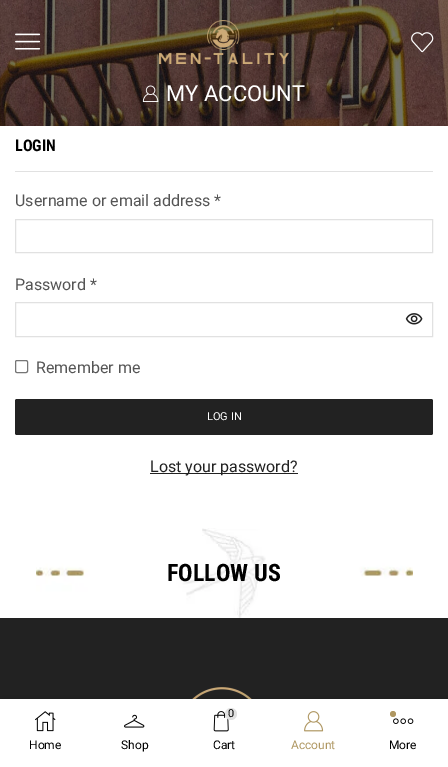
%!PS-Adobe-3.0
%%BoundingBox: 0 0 448 767
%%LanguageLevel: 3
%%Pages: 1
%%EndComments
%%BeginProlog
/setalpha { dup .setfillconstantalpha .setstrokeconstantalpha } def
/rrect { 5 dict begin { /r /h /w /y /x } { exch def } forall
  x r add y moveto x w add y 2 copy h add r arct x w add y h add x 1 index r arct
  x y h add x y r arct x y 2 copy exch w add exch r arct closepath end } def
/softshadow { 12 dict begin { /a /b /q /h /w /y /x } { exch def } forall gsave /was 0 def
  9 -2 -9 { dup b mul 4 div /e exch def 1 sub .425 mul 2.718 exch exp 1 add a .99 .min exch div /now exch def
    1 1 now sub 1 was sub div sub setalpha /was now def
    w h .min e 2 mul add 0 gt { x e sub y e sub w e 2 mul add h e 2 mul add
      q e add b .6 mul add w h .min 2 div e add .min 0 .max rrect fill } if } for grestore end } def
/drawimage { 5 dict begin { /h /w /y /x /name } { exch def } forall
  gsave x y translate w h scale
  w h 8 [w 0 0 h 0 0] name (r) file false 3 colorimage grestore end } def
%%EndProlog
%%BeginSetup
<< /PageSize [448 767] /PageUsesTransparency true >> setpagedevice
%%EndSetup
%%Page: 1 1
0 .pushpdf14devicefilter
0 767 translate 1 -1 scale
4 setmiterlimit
1 setgray
0 0 448 767 rectfill
(images/4.raw) 0 0 448 126 drawimage
(images/1.raw) 15 33 26 17 drawimage
(images/2.raw) 159 20 130 44 drawimage
(images/3.raw) 411 32 23 21 drawimage
(images/5.raw) 142 85 17 17 drawimage
0.882 setgray
15 171 418 1 rectfill
15.5 219.5 417 33 rectstroke
15.5 302.5 417 34 rectstroke
(images/6.raw) 405 313 18 12 drawimage
0.463 setgray
15.5 360.5 12 12 1.5 rrect stroke
0.133 setgray
15 399 418 36 2 rrect fill
150 473 148 1 rectfill
(images/7.raw) 36 528 377 90 drawimage
0 618 448 81 rectfill
(images/8.raw) 192 687 60 12 drawimage
0 setgray
2 699 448 68 0 6 0.15 softshadow
1 setgray
0 699 448 68 rectfill
(images/9.raw) 35 711 21 21 drawimage
(images/10.raw) 124 714 21 14 drawimage
(images/11.raw) 213 711 16 21 drawimage
0.882 setgray
newpath 231 714 6 0 360 arc closepath fill
(images/12.raw) 304 711 20 21 drawimage
0.686 0.592 0.384 setrgbcolor
newpath 393 714 3 0 360 arc closepath fill
(images/13.raw) 393 718 21 6 drawimage
/Roboto-Regular [22 0 0 -22 0 0] selectfont
1 setgray
166 101 moveto (MY ACCOUNT) show
/RobotoCondensed-Bold [16 0 0 -16 0 0] selectfont
0 setgray
15 151 moveto (LOGIN) show
/Roboto-Regular [16 0 0 -16 0 0] selectfont
0.333 setgray
15 206 moveto (Username or email address *) show
15 290 moveto (Password *) show
36 373 moveto (Remember me) show
/Roboto-Regular [11 0 0 -11 0 0] selectfont
1 setgray
207 420 moveto (LOG IN) show
/Roboto-Regular [16 0 0 -16 0 0] selectfont
0.133 setgray
150 472 moveto (Lost your password?) show
/RobotoCondensed-Bold [24 0 0 -24 0 0] selectfont
0 setgray
167 581 moveto (FOLLOW US) show
/Roboto-Regular [12 0 0 -12 0 0] selectfont
29 749 moveto (Home) show
121 749 moveto (Shop) show
/Roboto-Regular [11 0 0 -11 0 0] selectfont
228 717 moveto (0) show
/Roboto-Regular [12 0 0 -12 0 0] selectfont
213 749 moveto (Cart) show
0.686 0.592 0.384 setrgbcolor
291 749 moveto (Account) show
0 setgray
389 749 moveto (More) show
.poppdf14devicefilter showpage
%%EOF
